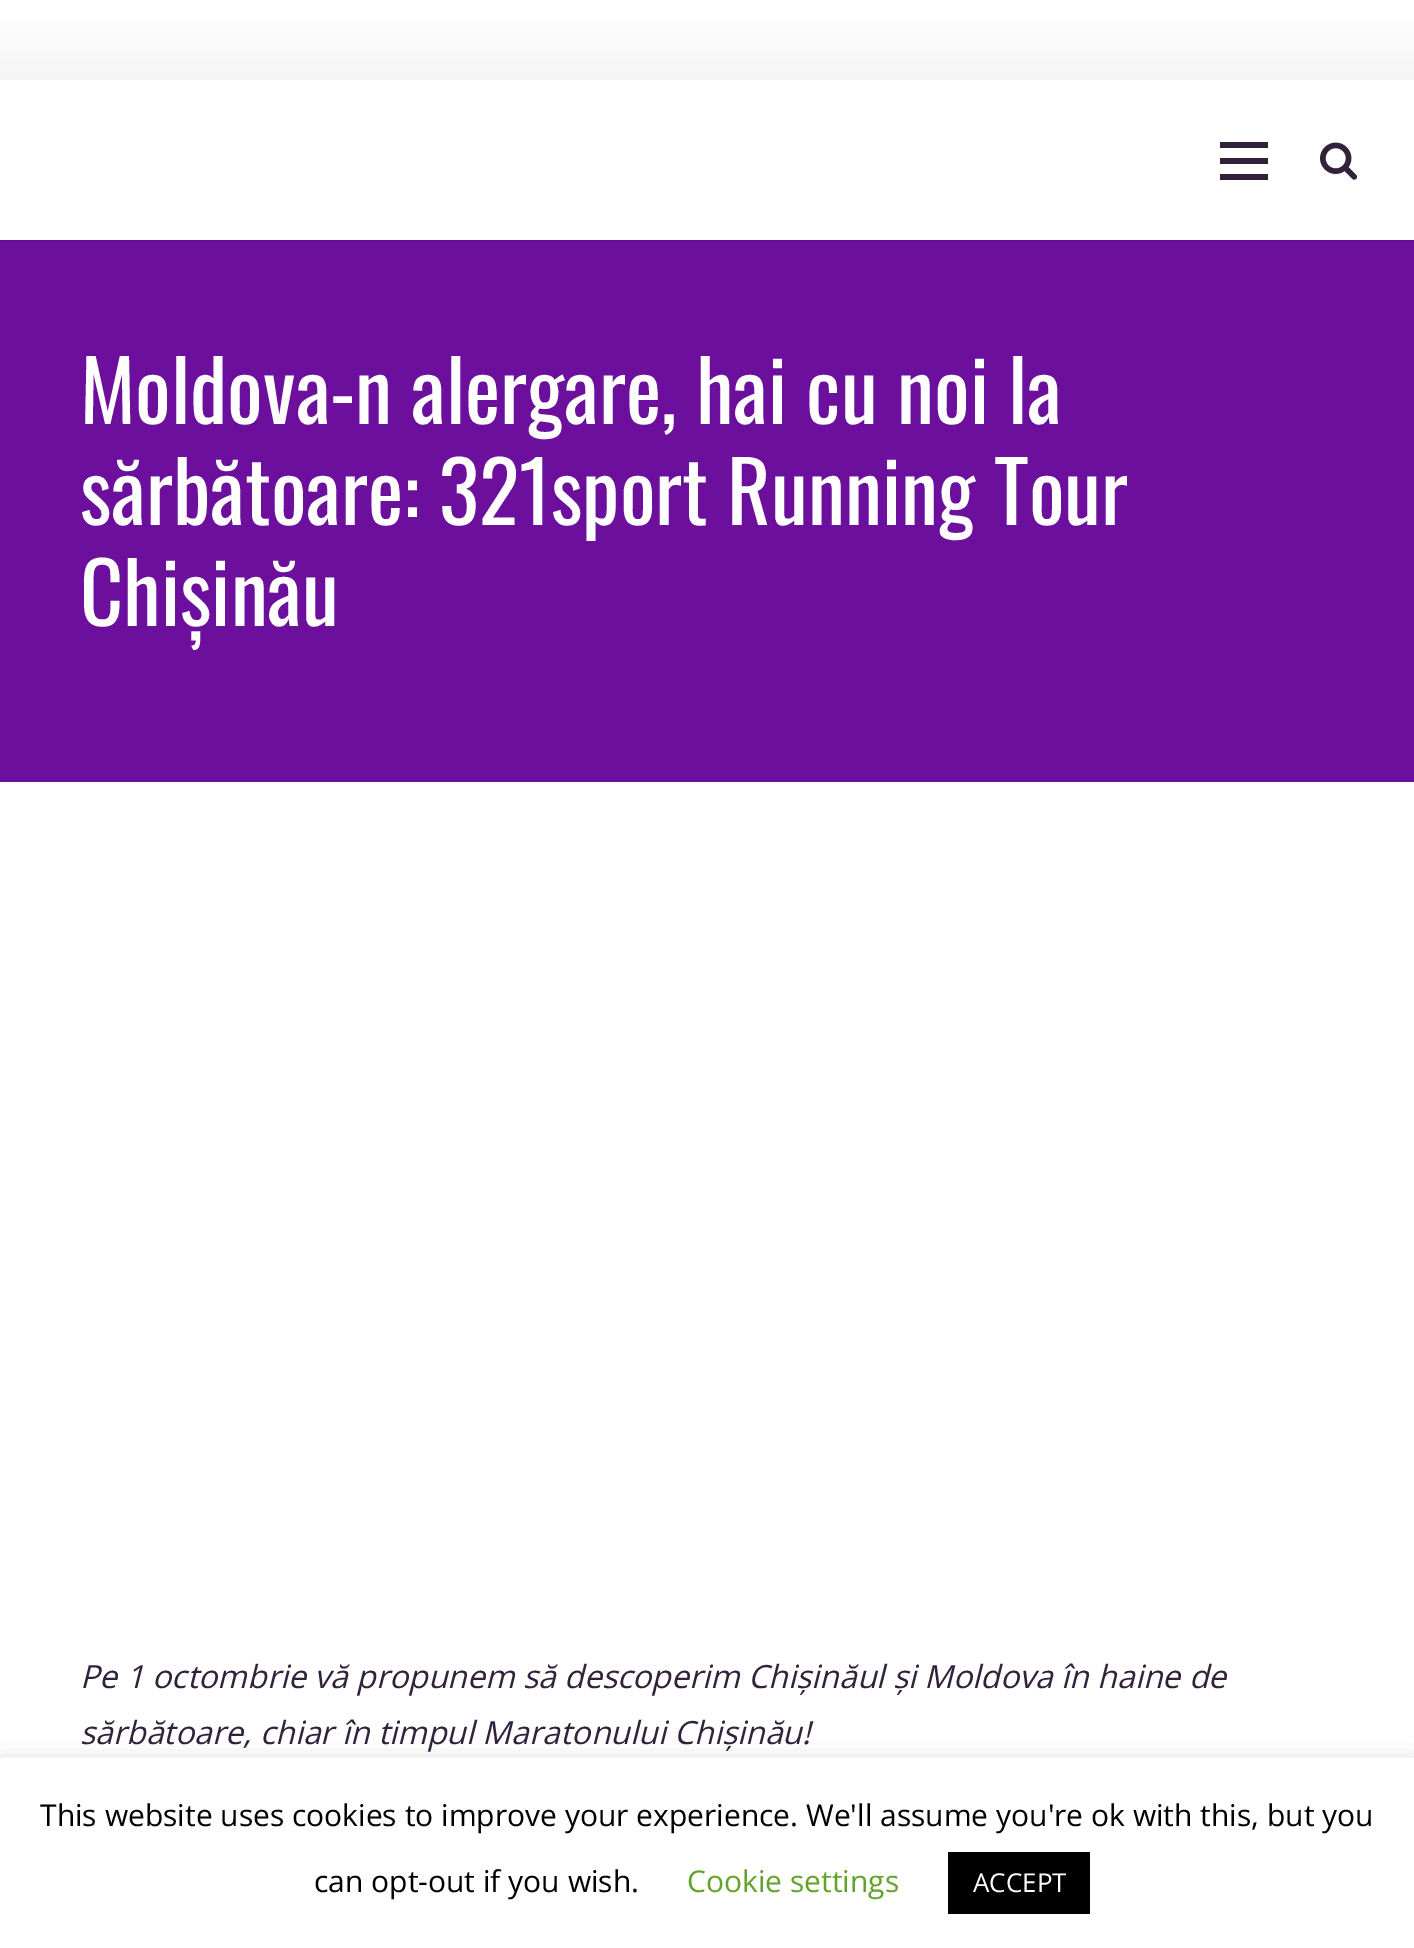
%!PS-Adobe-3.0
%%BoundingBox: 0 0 1414 1948
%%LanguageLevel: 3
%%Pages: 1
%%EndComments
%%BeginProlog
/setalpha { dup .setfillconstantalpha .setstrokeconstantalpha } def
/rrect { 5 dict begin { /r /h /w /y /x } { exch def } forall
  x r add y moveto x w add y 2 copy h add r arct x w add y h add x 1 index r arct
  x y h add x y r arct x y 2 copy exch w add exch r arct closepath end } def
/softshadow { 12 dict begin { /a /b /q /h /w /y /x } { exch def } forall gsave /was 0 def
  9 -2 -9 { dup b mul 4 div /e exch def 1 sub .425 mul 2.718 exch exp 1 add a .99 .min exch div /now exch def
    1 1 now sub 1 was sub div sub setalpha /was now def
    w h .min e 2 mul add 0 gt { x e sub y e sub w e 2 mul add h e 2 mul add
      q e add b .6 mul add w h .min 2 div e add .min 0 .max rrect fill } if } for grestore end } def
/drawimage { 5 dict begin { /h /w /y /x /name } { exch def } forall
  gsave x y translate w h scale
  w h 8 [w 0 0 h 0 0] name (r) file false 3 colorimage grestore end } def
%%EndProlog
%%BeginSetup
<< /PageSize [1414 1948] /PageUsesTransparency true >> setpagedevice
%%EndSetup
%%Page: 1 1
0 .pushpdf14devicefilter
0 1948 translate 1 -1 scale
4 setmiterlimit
1 setgray
0 0 1414 1948 rectfill
gsave newpath 0 20 moveto 1414 20 lineto 1414 80 lineto 0 80 lineto closepath clip newpath
<< /ShadingType 2 /ColorSpace /DeviceRGB /Coords [707 80 707 0] /Extend [true true] /Function << /FunctionType 2 /Domain [0 1] /C0 [0.961 0.961 0.961] /C1 [1 1 1] /N 1 >> >> shfill grestore
0.384 0.055 0.565 setrgbcolor
0 240 1414 2 rectfill
0.192 0.129 0.227 setrgbcolor
1220 158 48 6 rectfill
1220 142 48 6 rectfill
1220 174 48 6 rectfill
(images/1.raw) 1320 142 38 38 drawimage
0.42 0.059 0.612 setrgbcolor
0 242 1414 540 rectfill
gsave
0 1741 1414 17 rectclip
0.675 0.671 0.671 setrgbcolor
0 1756 1414 190 0 10 0.3 softshadow
grestore
0 setgray
948 1852 142 62 rectfill
/Oswald-Regular [84 0 0 -84 0 0] selectfont
1 setgray
80 424 moveto (Moldova-n alergare, hai cu noi la) show
80 525 moveto (sărbătoare: 321sport Running Tour) show
80 626 moveto (Chișinău) show
/OpenSans-Italic [32 0 0 -32 0 0] selectfont
0.192 0.129 0.227 setrgbcolor
80 1688 moveto (Pe 1 octombrie vă propunem să descoperim Chișinăul și Moldova în haine de) show
80 1744 moveto (sărbătoare, chiar în timpul Maratonului Chișinău!) show
/OpenSans-Regular [30 0 0 -30 0 0] selectfont
0 setgray
40 1826 moveto (This website uses cookies to improve your experience. We'll assume you're ok with this, but you) show
314 1892 moveto (can opt-out if you wish.) show
0.384 0.639 0.161 setrgbcolor
687 1892 moveto (Cookie settings) show
/OpenSans-Regular [26 0 0 -26 0 0] selectfont
1 setgray
973 1892 moveto (ACCEPT) show
.poppdf14devicefilter showpage
%%EOF
